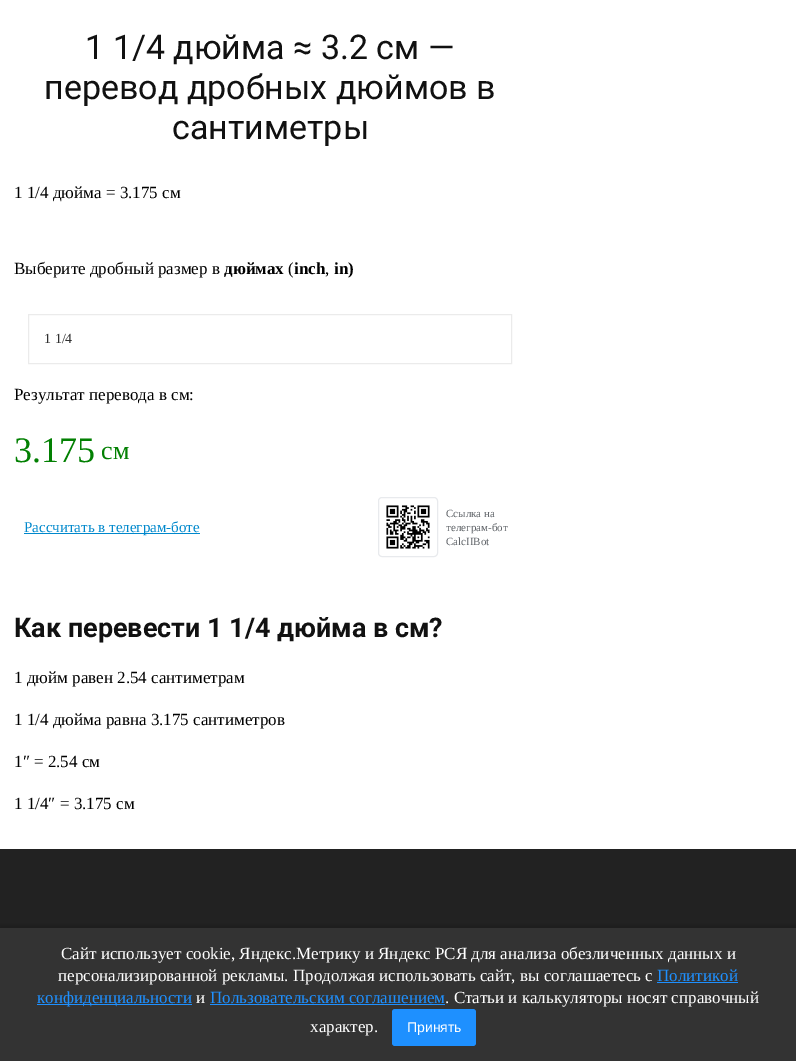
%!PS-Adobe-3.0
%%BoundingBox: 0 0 796 1061
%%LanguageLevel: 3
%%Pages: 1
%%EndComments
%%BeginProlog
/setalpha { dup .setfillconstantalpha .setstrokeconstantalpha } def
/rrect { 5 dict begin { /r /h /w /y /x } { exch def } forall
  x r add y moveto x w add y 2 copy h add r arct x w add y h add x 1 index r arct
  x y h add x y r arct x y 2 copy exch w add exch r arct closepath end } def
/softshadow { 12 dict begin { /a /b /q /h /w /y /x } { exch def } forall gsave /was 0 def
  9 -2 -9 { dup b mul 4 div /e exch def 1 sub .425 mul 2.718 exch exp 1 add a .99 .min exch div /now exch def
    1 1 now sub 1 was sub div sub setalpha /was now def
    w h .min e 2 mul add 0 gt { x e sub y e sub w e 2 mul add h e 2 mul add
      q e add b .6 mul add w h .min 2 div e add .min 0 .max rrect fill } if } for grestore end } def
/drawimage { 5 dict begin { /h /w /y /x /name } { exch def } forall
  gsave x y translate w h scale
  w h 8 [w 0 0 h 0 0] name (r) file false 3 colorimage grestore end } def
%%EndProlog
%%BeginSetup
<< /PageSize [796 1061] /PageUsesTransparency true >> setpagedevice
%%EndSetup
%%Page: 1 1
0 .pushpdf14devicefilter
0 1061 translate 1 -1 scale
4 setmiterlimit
1 setgray
0 0 796 1061 rectfill
0.922 setgray
28.5 314.5 483 49 rectstroke
0 0.533 0.8 setrgbcolor
24 533 176 1 rectfill
0.91 0.918 0.929 setrgbcolor
378.5 497.5 59 59 3.5 rrect stroke
(images/1.raw) 386 505 44 44 drawimage
0.133 setgray
0 849 796 79 rectfill
0 setgray
0 926 796 133 0 2.5 0.2 softshadow
0.2 setgray
0 928 796 133 rectfill
0.118 0.565 1 setrgbcolor
657 982 81 1 rectfill
37 1004 155 1 rectfill
210 1004 235 1 rectfill
392 1009 84 37 3 rrect fill
/Roboto-Regular [34 0 0 -34 0 0] selectfont
0.067 setgray
85 59 moveto (1 1/4 дюйма ≈ 3.2 см —) show
44 99 moveto (перевод дробных дюймов в) show
172 139 moveto (сантиметры) show
/LiberationSerif-Regular [17 0 0 -17 0 0] selectfont
0 setgray
14 198 moveto (1 1/4 дюйма = 3.175 см) show
14 274 moveto (Выберите дробный размер в) show
/LiberationSerif-Bold [17 0 0 -17 0 0] selectfont
224 274 moveto (дюймах) show
/LiberationSerif-Regular [17 0 0 -17 0 0] selectfont
288 274 moveto (\() show
/LiberationSerif-Bold [17 0 0 -17 0 0] selectfont
294 274 moveto (inch) show
/LiberationSerif-Regular [17 0 0 -17 0 0] selectfont
325 274 moveto (,) show
/LiberationSerif-Bold [17 0 0 -17 0 0] selectfont
334 274 moveto (in\)) show
/LiberationSerif-Regular [14 0 0 -14 0 0] selectfont
0.188 setgray
44 343 moveto (1 1/4) show
/LiberationSerif-Regular [17 0 0 -17 0 0] selectfont
0 setgray
14 400 moveto (Результат перевода в см:) show
/LiberationSerif-Regular [36 0 0 -36 0 0] selectfont
0.008 0.502 0.008 setrgbcolor
14 462 moveto (3.175) show
/LiberationSerif-Regular [26 0 0 -26 0 0] selectfont
101 459 moveto (см) show
/LiberationSerif-Regular [15 0 0 -15 0 0] selectfont
0 0.533 0.8 setrgbcolor
24 532 moveto (Рассчитать в телеграм-боте) show
/LiberationSerif-Regular [11 0 0 -11 0 0] selectfont
0.373 0.388 0.408 setrgbcolor
446 517 moveto (Ссылка на) show
446 531 moveto (телеграм-бот) show
446 545 moveto (CalcIIBot) show
/Roboto-Bold [27 0 0 -27 0 0] selectfont
0.067 setgray
14 637 moveto (Как перевести 1 1/4 дюйма в см?) show
/LiberationSerif-Regular [17 0 0 -17 0 0] selectfont
0 setgray
14 683 moveto (1 дюйм равен 2.54 сантиметрам) show
14 725 moveto (1 1/4 дюйма равна 3.175 сантиметров) show
14 767 moveto (1″ = 2.54 см) show
14 809 moveto (1 1/4″ = 3.175 см) show
1 setgray
61 959 moveto (Сайт использует cookie, Яндекс.Метрику и Яндекс РСЯ для анализа обезличенных данных и) show
58 981 moveto (персонализированной рекламы. Продолжая использовать сайт, вы соглашаетесь с) show
0.118 0.565 1 setrgbcolor
657 981 moveto (Политикой) show
37 1003 moveto (конфиденциальности) show
1 setgray
196 1003 moveto (и) show
0.118 0.565 1 setrgbcolor
210 1003 moveto (Пользовательским соглашением) show
1 setgray
445 1003 moveto (. Статьи и калькуляторы носят справочный) show
310 1032 moveto (характер.) show
/LiberationSans-Regular [14 0 0 -14 0 0] selectfont
407 1032 moveto (Принять) show
.poppdf14devicefilter showpage
%%EOF
